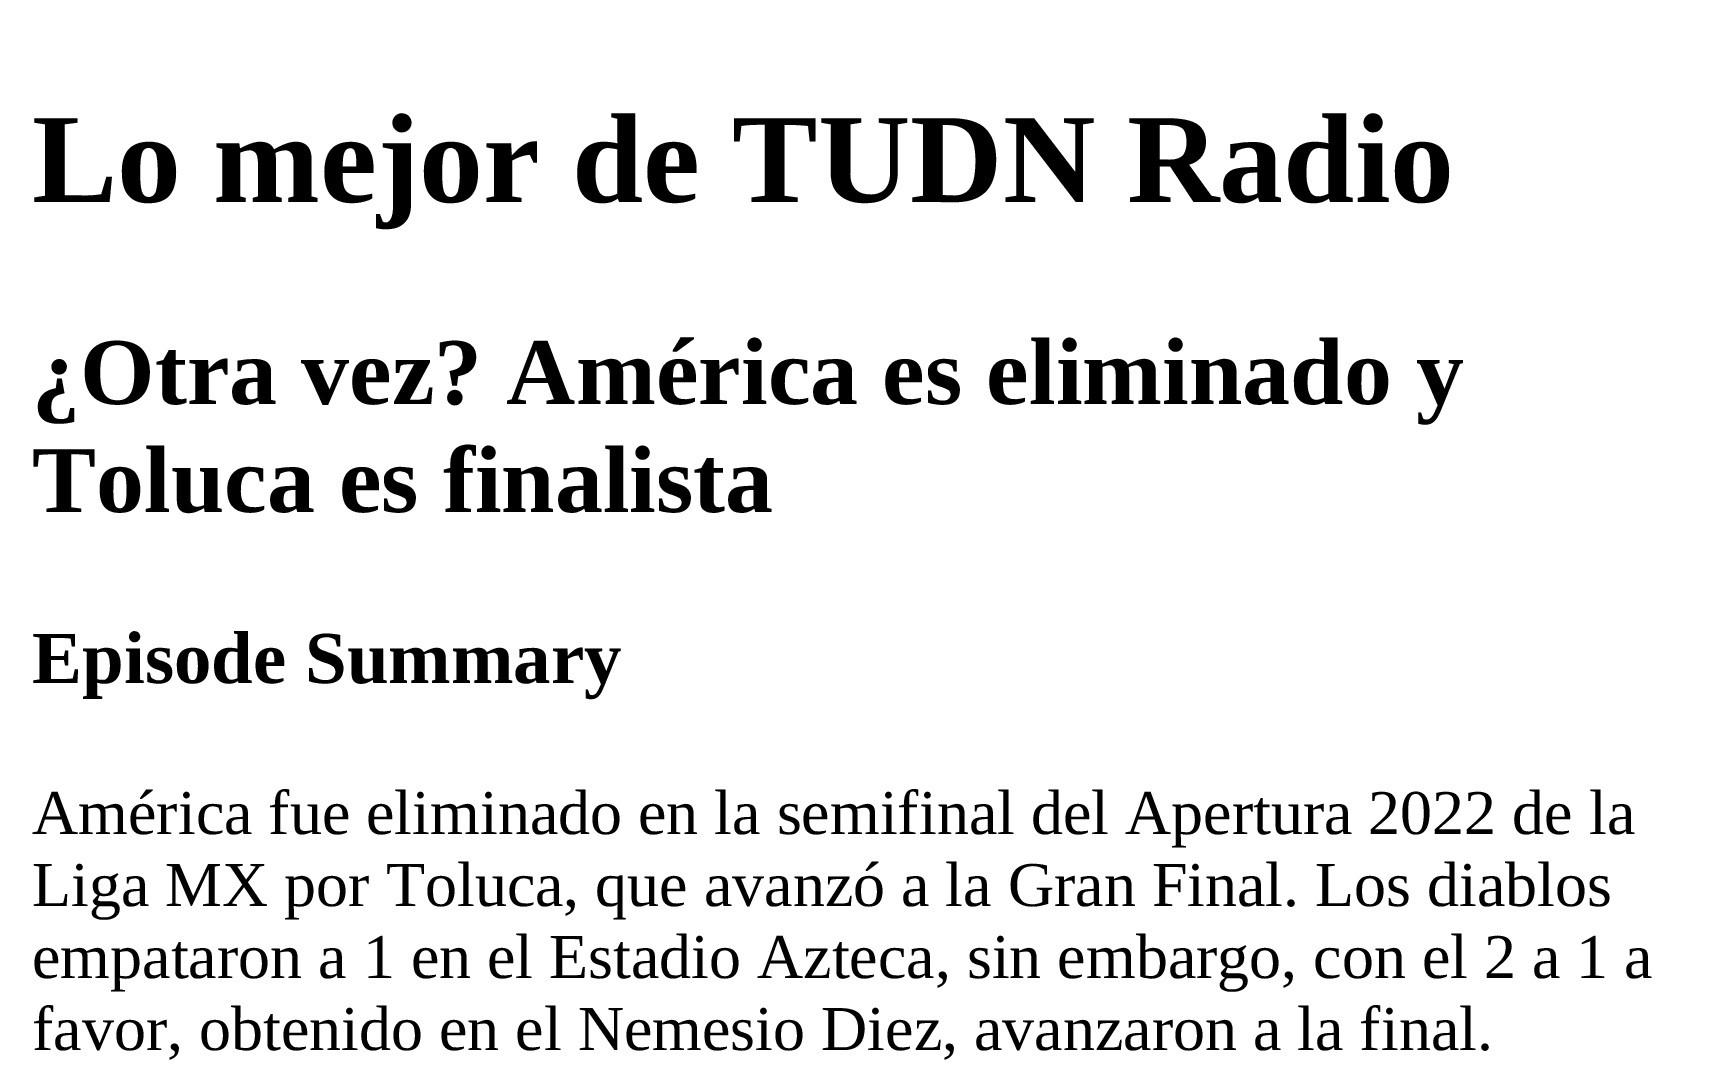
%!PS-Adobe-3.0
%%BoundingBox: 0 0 1712 1078
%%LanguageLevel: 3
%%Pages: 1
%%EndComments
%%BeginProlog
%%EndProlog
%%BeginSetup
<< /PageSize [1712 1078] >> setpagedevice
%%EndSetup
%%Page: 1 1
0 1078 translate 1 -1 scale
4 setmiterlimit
1 setgray
0 0 1712 1078 rectfill
/LiberationSerif-Bold [128 0 0 -128 0 0] selectfont
0 setgray
32 202 moveto (Lo mejor de TUDN Radio) show
/LiberationSerif-Bold [96 0 0 -96 0 0] selectfont
32 404 moveto (¿Otra vez? América es eliminado y) show
32 512 moveto (Toluca es finalista) show
/LiberationSerif-Bold [75 0 0 -75 0 0] selectfont
32 683 moveto (Episode Summary) show
/LiberationSerif-Regular [64 0 0 -64 0 0] selectfont
32 834 moveto (América fue eliminado en la semifinal del Apertura 2022 de la) show
32 906 moveto (Liga MX por Toluca, que avanzó a la Gran Final. Los diablos) show
32 978 moveto (empataron a 1 en el Estadio Azteca, sin embargo, con el 2 a 1 a) show
32 1050 moveto (favor, obtenido en el Nemesio Diez, avanzaron a la final.) show
showpage
%%EOF
